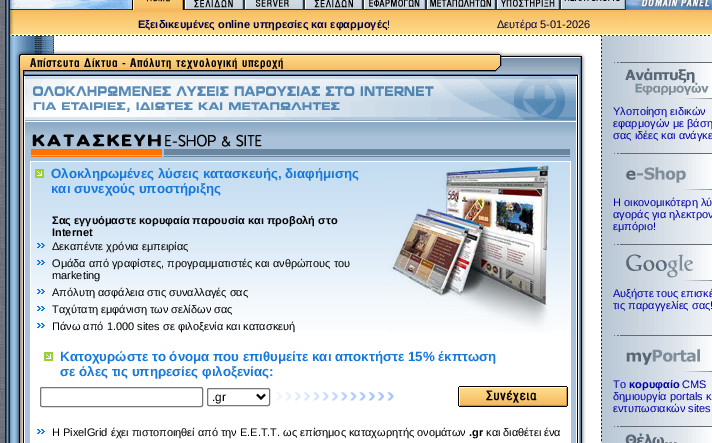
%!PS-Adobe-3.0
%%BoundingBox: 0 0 712 443
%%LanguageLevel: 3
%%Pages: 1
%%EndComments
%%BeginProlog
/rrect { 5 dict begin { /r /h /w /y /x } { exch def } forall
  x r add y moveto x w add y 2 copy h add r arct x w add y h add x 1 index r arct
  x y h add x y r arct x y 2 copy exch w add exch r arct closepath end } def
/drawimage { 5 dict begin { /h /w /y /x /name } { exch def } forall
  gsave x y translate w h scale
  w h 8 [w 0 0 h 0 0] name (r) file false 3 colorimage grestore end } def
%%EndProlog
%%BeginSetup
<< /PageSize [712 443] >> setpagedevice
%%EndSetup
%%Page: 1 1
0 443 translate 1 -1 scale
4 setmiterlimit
1 setgray
0 0 712 443 rectfill
(images/1.raw) 0 0 5 443 drawimage
(images/2.raw) 5 0 5 443 drawimage
0.208 0.298 0.404 setrgbcolor
6 373 1 1 rectfill
(images/3.raw) 10 36 702 407 drawimage
(images/4.raw) 10 0 122 10 drawimage
(images/5.raw) 626 0 86 10 drawimage
(images/6.raw) 132 0 52 10 drawimage
(images/7.raw) 184 0 60 10 drawimage
(images/8.raw) 244 0 60 10 drawimage
(images/9.raw) 304 0 59 10 drawimage
(images/10.raw) 363 0 63 10 drawimage
(images/11.raw) 426 0 70 10 drawimage
(images/12.raw) 496 0 64 10 drawimage
(images/13.raw) 560 0 66 10 drawimage
(images/14.raw) 10 10 122 26 drawimage
(images/15.raw) 132 10 494 26 drawimage
(images/16.raw) 626 10 86 26 drawimage
(images/17.raw) 15 50 10 26 drawimage
(images/18.raw) 25 50 551 26 drawimage
(images/19.raw) 576 52 10 24 drawimage
(images/20.raw) 15 76 10 367 drawimage
(images/21.raw) 25 76 551 44 drawimage
0.667 0.761 0.851 setrgbcolor
25 136 551 307 rectfill
(images/22.raw) 25 120 551 16 drawimage
(images/23.raw) 262 149 308 8 drawimage
(images/24.raw) 31 134 231 23 drawimage
1 setgray
30 161 541 282 rectfill
(images/25.raw) 31 162 347 168 drawimage
(images/26.raw) 35 169 9 9 drawimage
(images/27.raw) 37 243 8 5 drawimage
(images/28.raw) 37 260 8 5 drawimage
(images/29.raw) 37 289 8 5 drawimage
(images/30.raw) 37 306 8 5 drawimage
(images/31.raw) 37 323 8 5 drawimage
(images/32.raw) 378 162 192 168 drawimage
(images/33.raw) 388 162 164 170 drawimage
(images/26.raw) 44 352 9 9 drawimage
0.463 setgray
40.5 387.5 162 19 1.5 rrect stroke
207.5 388.5 62 17 1.5 rrect stroke
0 setgray
2 setlinewidth
newpath 257 394.5 moveto 261 398.5 lineto 265 394.5 lineto stroke
(images/34.raw) 276 392 182 9 drawimage
(images/35.raw) 458 386 110 21 drawimage
(images/36.raw) 37 429 8 5 drawimage
(images/37.raw) 577 76 9 367 drawimage
(images/38.raw) 614 62 98 37 drawimage
(images/39.raw) 614 153 98 37 drawimage
(images/40.raw) 614 244 98 37 drawimage
(images/41.raw) 614 335 98 37 drawimage
(images/42.raw) 614 426 98 17 drawimage
/LiberationSans-Bold [11 0 0 -11 0 0] selectfont
0 0 0.267 setrgbcolor
138 28 moveto (Εξειδικευμένες online υπηρεσίες και εφαρμογές) show
/LiberationSans-Regular [11 0 0 -11 0 0] selectfont
387 28 moveto (!) show
497 28 moveto (Δευτέρα 5-01-2026) show
/LiberationSans-Bold [13.3 0 0 -13.3 0 0] selectfont
0.078 0.475 0.859 setrgbcolor
51 178 moveto (Ολοκληρωμένες λύσεις κατασκευής, διαφήμισης) show
51 193 moveto (και συνεχούς υποστήριξης) show
/LiberationSans-Bold [11 0 0 -11 0 0] selectfont
0 setgray
52 224 moveto (Σας εγγυόμαστε κορυφαία παρουσία και προβολή στο) show
52 236 moveto (Internet) show
/LiberationSans-Regular [11 0 0 -11 0 0] selectfont
52 250 moveto (Δεκαπέντε χρόνια εμπειρίας) show
52 267 moveto (Ομάδα από γραφίστες, προγραμματιστές και ανθρώπους του) show
52 279 moveto (marketing) show
52 296 moveto (Απόλυτη ασφάλεια στις συναλλαγές σας) show
52 313 moveto (Ταχύτατη εμφάνιση των σελίδων σας) show
52 330 moveto (Πάνω από 1.000 sites σε φιλοξενία και κατασκευή) show
/LiberationSans-Bold [13.3 0 0 -13.3 0 0] selectfont
0.078 0.475 0.859 setrgbcolor
60 361 moveto (Κατοχυρώστε το όνομα που επιθυμείτε και αποκτήστε 15% έκπτωση) show
60 376 moveto (σε όλες τις υπηρεσίες φιλοξενίας:) show
/LiberationSans-Regular [12 0 0 -12 0 0] selectfont
0 setgray
212 401 moveto (.gr) show
/LiberationSans-Regular [11 0 0 -11 0 0] selectfont
52 436 moveto (Η PixelGrid έχει πιστοποιηθεί από την Ε.Ε.Τ.Τ. ως επίσημος καταχωρητής ονομάτων) show
/LiberationSans-Bold [11 0 0 -11 0 0] selectfont
469 436 moveto (.gr) show
/LiberationSans-Regular [11 0 0 -11 0 0] selectfont
486 436 moveto (και διαθέτει ένα) show
0 0 0.667 setrgbcolor
613 115 moveto (Υλοποίηση ειδικών) show
613 127 moveto (εφαρμογών με βάση) show
613 139 moveto (σας ιδέες και ανάγκε) show
613 206 moveto (Η οικονομικότερη λύ) show
613 218 moveto (αγοράς για ηλεκτρoν) show
613 230 moveto (εμπόριο!) show
613 297 moveto (Αυξήστε τους επισκέ) show
613 309 moveto (τις παραγγελίες σας!) show
613 388 moveto (Το) show
/LiberationSans-Bold [11 0 0 -11 0 0] selectfont
629 388 moveto (κορυφαίο) show
/LiberationSans-Regular [11 0 0 -11 0 0] selectfont
682 388 moveto (CMS) show
613 400 moveto (δημιουργία portals κ) show
613 412 moveto (εντυπωσιακών sites) show
showpage
%%EOF
